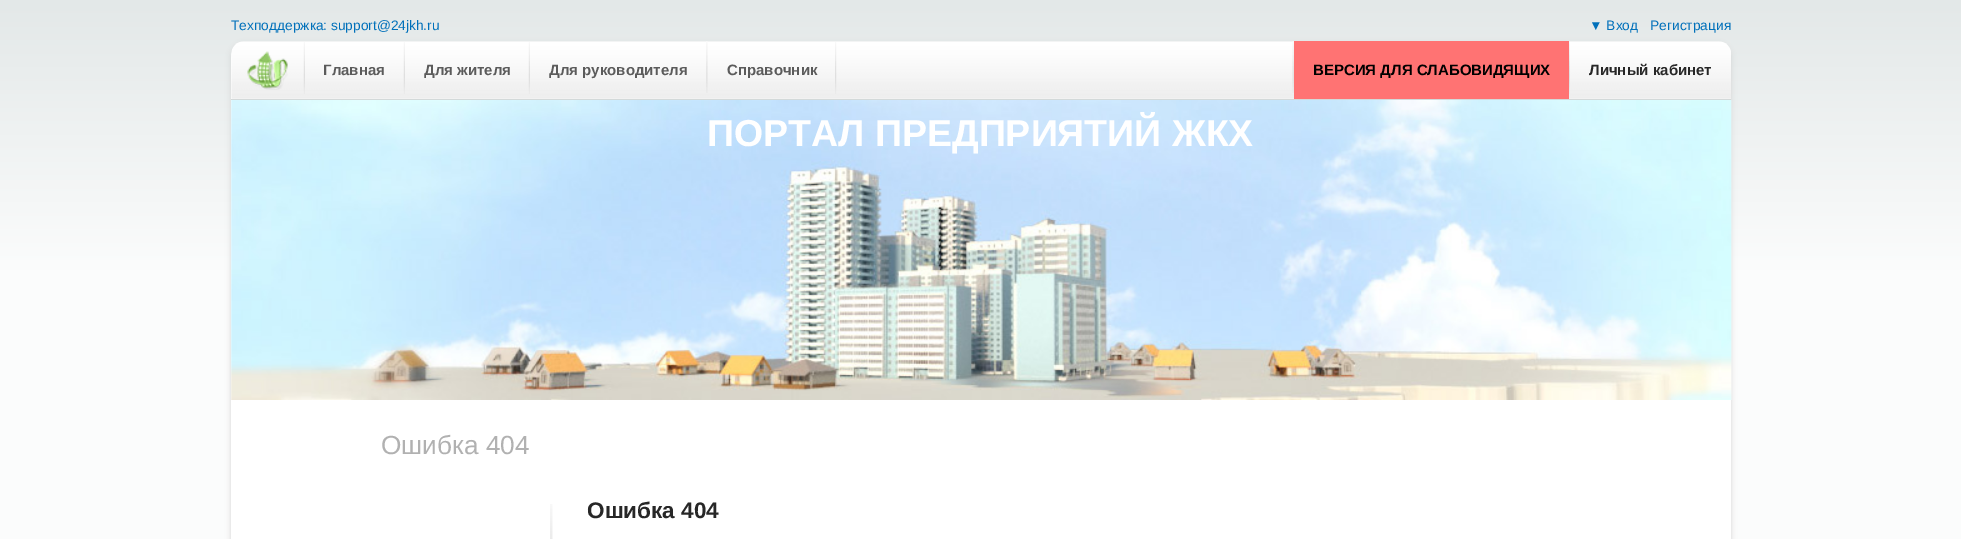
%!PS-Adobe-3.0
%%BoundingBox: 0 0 1961 539
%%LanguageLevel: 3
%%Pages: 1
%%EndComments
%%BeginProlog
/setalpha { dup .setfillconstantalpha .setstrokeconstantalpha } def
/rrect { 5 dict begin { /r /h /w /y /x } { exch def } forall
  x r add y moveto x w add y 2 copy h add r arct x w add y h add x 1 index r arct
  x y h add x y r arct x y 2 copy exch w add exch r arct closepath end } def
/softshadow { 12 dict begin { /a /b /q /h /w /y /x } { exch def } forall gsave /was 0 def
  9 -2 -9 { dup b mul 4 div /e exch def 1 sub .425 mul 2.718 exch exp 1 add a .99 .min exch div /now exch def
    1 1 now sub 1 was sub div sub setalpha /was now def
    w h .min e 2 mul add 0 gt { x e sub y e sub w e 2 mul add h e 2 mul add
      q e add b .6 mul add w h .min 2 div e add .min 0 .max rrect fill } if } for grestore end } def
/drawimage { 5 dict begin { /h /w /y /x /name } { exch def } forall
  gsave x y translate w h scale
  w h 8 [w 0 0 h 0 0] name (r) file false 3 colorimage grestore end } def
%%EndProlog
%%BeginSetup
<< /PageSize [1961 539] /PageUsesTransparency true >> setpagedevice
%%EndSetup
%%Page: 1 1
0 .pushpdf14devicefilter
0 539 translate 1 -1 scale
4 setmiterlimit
1 setgray
0 0 1961 539 rectfill
gsave newpath 0 0 moveto 1961 0 lineto 1961 539 lineto 0 539 lineto closepath clip newpath
<< /ShadingType 2 /ColorSpace /DeviceRGB /Coords [981 0 981 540] /Extend [true true] /Function << /FunctionType 3 /Domain [0 1] /Functions [<< /FunctionType 2 /Domain [0 1] /C0 [0.89 0.91 0.91] /C1 [0.984 0.988 0.988] /N 1 >> << /FunctionType 2 /Domain [0 1] /C0 [0.984 0.988 0.988] /C1 [0.984 0.988 0.988] /N 1 >>] /Bounds [0.5] /Encode [0 1 0 1] >> >> shfill grestore
0.831 setgray
231 44 1500 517 13 3 1 softshadow
1 setgray
231 44 1500 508 13 rrect fill
(images/1.raw) 231 41 1500 58 drawimage
0.827 0.851 0.851 setrgbcolor
231 99 1500 1 rectfill
(images/2.raw) 247 51 41 39 drawimage
(images/3.raw) 303 42 2 52 drawimage
(images/3.raw) 403 42 2 52 drawimage
(images/3.raw) 528 42 2 52 drawimage
(images/4.raw) 706 41 2 52 drawimage
(images/5.raw) 835 42 2 52 drawimage
(images/6.raw) 1292 41 2 52 drawimage
1 0.451 0.451 setrgbcolor
1294 41 275 58 rectfill
(images/7.raw) 1569 42 1 52 drawimage
(images/8.raw) 231 100 1501 300 drawimage
(images/9.raw) 550 504 3 35 drawimage
/LiberationSans-Regular [13.75 0 0 -13.75 0 0] selectfont
0 0.439 0.729 setrgbcolor
231 30 moveto (Техподдержка: support@24jkh.ru) show
1589 30 moveto (▼ Вход) show
1650 30 moveto (Регистрация) show
/LiberationSans-Bold [15 0 0 -15 0 0] selectfont
0.357 setgray
323 75 moveto (Главная) show
424 75 moveto (Для жителя) show
549 75 moveto (Для руководителя) show
727 75 moveto (Справочник) show
0 setgray
1313 75 moveto (ВЕРСИЯ ДЛЯ СЛАБОВИДЯЩИХ) show
0.153 setgray
1589 75 moveto (Личный кабинет) show
/LiberationSans-Bold [37.5 0 0 -37.5 0 0] selectfont
1 setgray
707 146 moveto (ПОРТАЛ ПРЕДПРИЯТИЙ ЖКХ) show
/LiberationSans-Regular [26.25 0 0 -26.25 0 0] selectfont
0.694 setgray
381 454 moveto (Ошибка 404) show
/LiberationSans-Bold [22.5 0 0 -22.5 0 0] selectfont
0.153 setgray
587 518 moveto (Ошибка 404) show
.poppdf14devicefilter showpage
%%EOF
